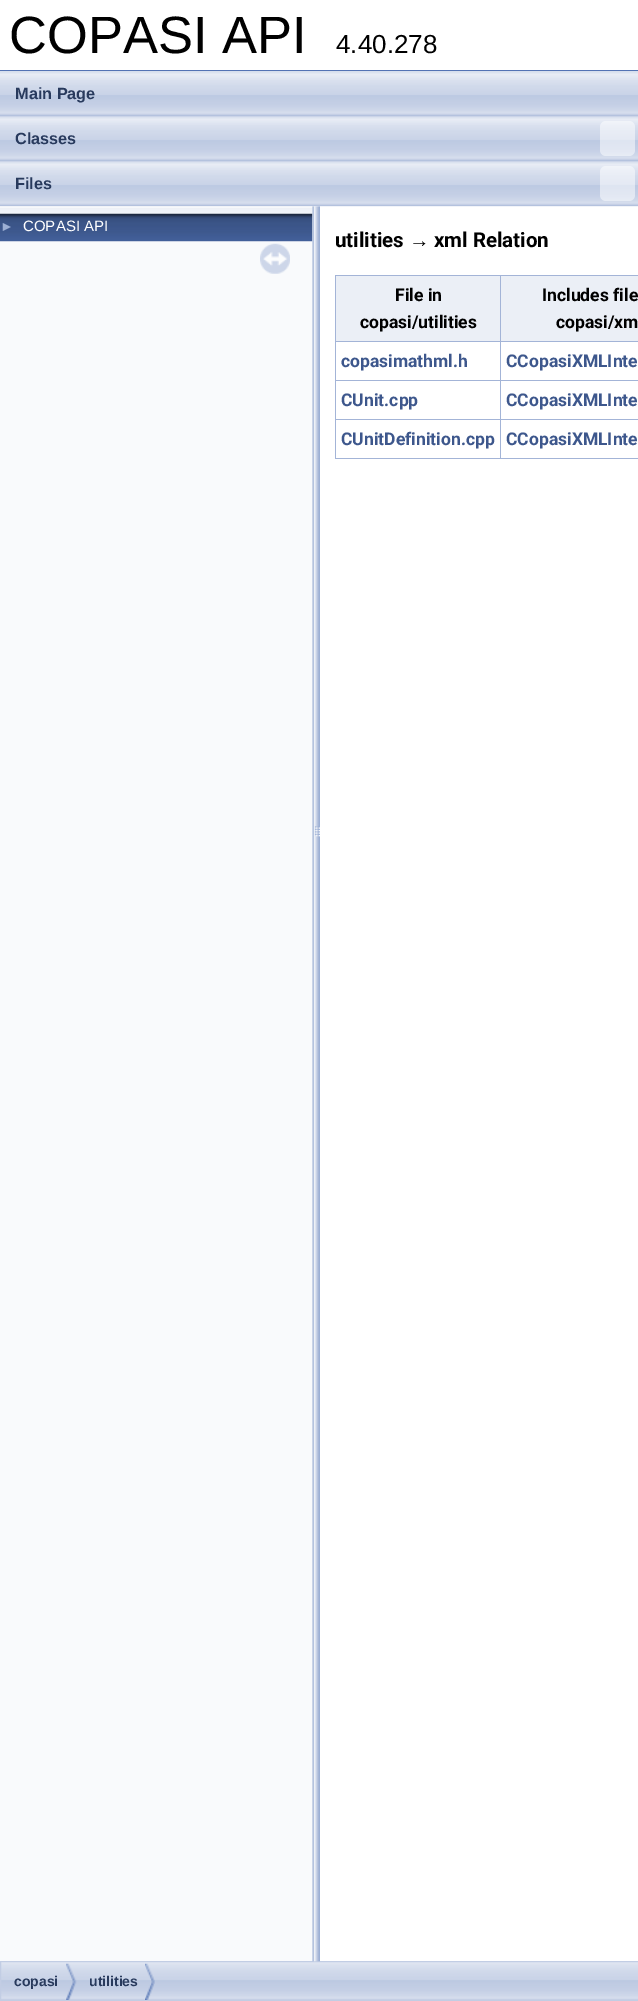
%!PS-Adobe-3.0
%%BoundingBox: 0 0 638 2001
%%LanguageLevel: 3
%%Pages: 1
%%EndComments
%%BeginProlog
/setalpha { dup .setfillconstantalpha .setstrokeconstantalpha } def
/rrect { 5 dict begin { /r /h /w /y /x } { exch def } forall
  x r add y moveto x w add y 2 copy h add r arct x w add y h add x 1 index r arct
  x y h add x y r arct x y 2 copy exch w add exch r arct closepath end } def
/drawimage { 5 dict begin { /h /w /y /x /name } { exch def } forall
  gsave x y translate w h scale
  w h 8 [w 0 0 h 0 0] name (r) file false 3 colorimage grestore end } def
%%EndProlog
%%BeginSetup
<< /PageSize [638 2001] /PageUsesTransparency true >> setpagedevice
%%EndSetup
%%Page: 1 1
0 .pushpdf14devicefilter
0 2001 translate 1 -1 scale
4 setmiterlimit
1 setgray
0 0 638 2001 rectfill
0.325 0.451 0.706 setrgbcolor
0 70 638 1 rectfill
0.976 0.98 0.988 setrgbcolor
0 206 313 1755 rectfill
(images/2.raw) 0 206 313 10 drawimage
(images/3.raw) 0 213 313 29 drawimage
(images/6.raw) 1 1962 637 38 drawimage
0.761 0.804 0.894 setrgbcolor
0.5 1961.5 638 39 rectstroke
(images/5.raw) 312 206 8 1756 drawimage
(images/1.raw) 0 71 638 136 drawimage
0.5 setalpha
1 setgray
600 121 35 35 6 rrect fill
600 166 35 35 6 rrect fill
1 setalpha
(images/4.raw) 260 243 30 31 drawimage
0.639 0.706 0.843 setrgbcolor
335 275 303 1 rectfill
335 458 303 1 rectfill
335 275 1 184 rectfill
0.922 0.937 0.965 setrgbcolor
336 276 164 65 rectfill
501 276 137 65 rectfill
0.639 0.706 0.843 setrgbcolor
335 341 303 1 rectfill
335 380 303 1 rectfill
335 419 303 1 rectfill
500 275 1 184 rectfill
(images/7.raw) 66 1963 11 37 drawimage
(images/8.raw) 145 1963 10 37 drawimage
/LiberationSans-Regular [52.5 0 0 -52.5 0 0] selectfont
0 setgray
9 53 moveto (COPASI API) show
/LiberationSans-Regular [26 0 0 -26 0 0] selectfont
336 53 moveto (4.40.278) show
/LiberationSans-Bold [16.25 0 0 -16.25 0 0] selectfont
0.157 0.227 0.365 setrgbcolor
15 99 moveto (Main Page) show
15 144 moveto (Classes) show
15 189 moveto (Files) show
/LiberationSans-Regular [14 0 0 -14 0 0] selectfont
0.612 0.686 0.831 setrgbcolor
0 231 moveto (►) show
/LiberationSans-Regular [15 0 0 -15 0 0] selectfont
1 setgray
23 231 moveto (COPASI API) show
/Roboto-Bold [20.5 0 0 -20.5 0 0] selectfont
0 setgray
335 247 moveto (utilities) show
/LiberationSans-Bold [20.5 0 0 -20.5 0 0] selectfont
409 247 moveto (→) show
/Roboto-Bold [20.5 0 0 -20.5 0 0] selectfont
434 247 moveto (xml Relation) show
/Roboto-Bold [17.5 0 0 -17.5 0 0] selectfont
395 301 moveto (File in) show
360 328 moveto (copasi/utilities) show
542 301 moveto (Includes file) show
556 328 moveto (copasi/xm) show
0.239 0.341 0.549 setrgbcolor
341 367 moveto (copasimathml.h) show
506 367 moveto (CCopasiXMLInte) show
341 406 moveto (CUnit.cpp) show
506 406 moveto (CCopasiXMLInte) show
341 445 moveto (CUnitDefinition.cpp) show
506 445 moveto (CCopasiXMLInte) show
/LiberationSans-Bold [14 0 0 -14 0 0] selectfont
0.157 0.227 0.365 setrgbcolor
14 1986 moveto (copasi) show
89 1986 moveto (utilities) show
.poppdf14devicefilter showpage
%%EOF
